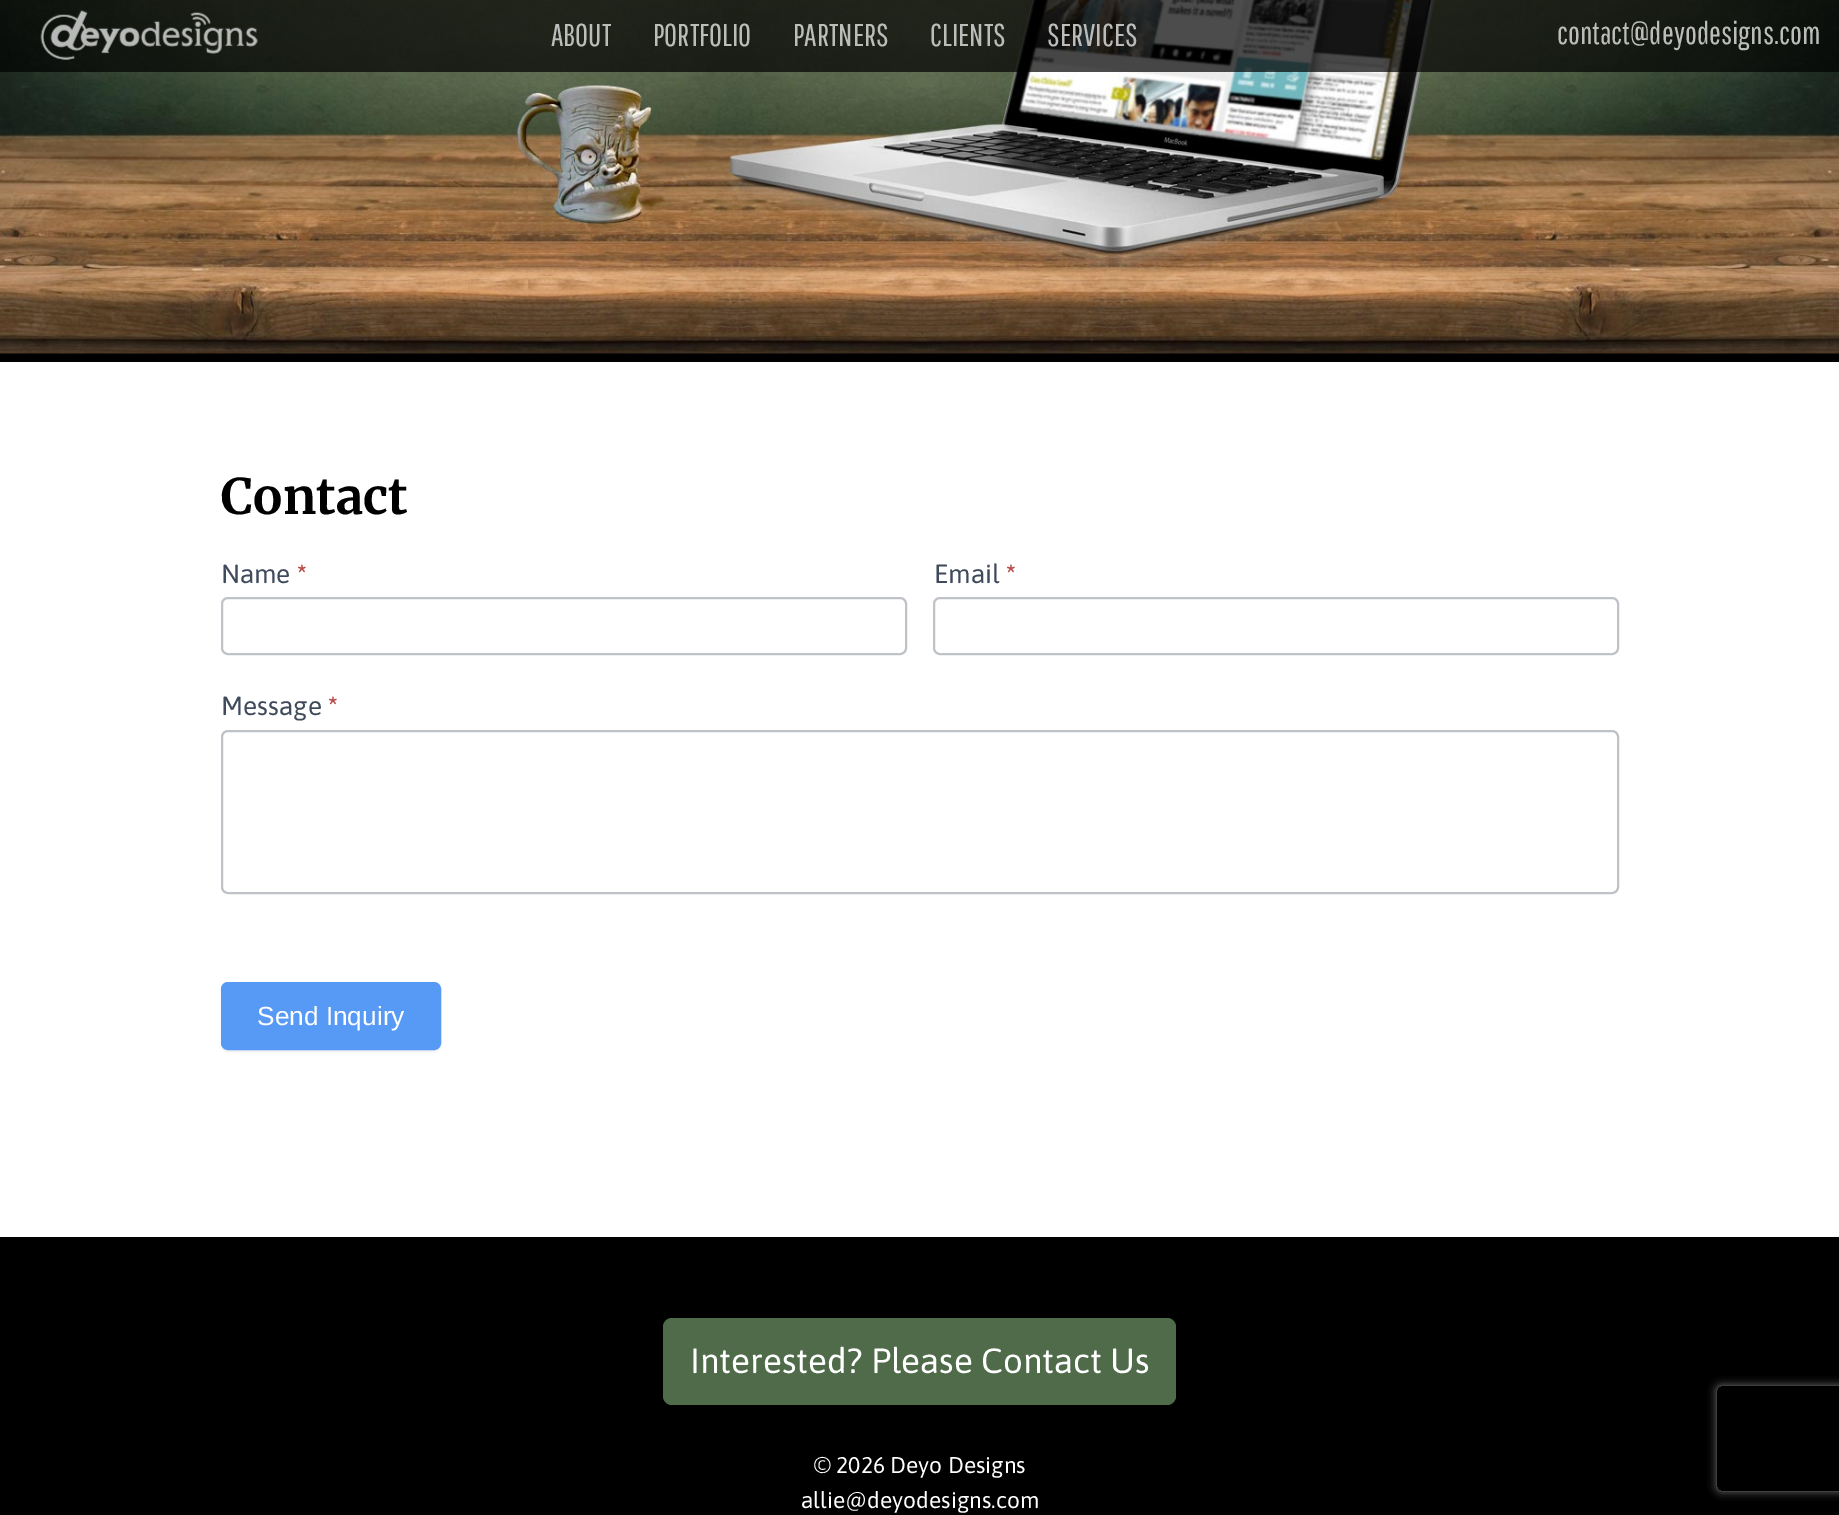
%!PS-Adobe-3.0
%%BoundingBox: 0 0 1839 1515
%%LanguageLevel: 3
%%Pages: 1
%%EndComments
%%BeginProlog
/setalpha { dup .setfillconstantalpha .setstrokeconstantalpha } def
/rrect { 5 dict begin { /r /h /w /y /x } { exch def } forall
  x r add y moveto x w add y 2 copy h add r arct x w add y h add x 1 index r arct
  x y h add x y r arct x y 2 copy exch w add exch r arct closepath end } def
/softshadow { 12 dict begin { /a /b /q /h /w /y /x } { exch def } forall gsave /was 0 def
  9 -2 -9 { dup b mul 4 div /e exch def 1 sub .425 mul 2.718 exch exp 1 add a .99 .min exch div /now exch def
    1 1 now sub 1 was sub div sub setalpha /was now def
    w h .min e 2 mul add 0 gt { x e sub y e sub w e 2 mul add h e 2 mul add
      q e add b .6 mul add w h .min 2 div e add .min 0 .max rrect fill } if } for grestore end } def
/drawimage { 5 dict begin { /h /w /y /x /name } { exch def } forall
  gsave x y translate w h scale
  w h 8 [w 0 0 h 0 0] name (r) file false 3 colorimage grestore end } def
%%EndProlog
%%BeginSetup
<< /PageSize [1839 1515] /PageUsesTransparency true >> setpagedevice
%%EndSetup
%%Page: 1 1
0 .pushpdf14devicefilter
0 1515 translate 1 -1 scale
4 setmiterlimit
0 setgray
0 0 1839 1515 rectfill
(images/1.raw) 0 0 1839 354 drawimage
0.7 setalpha
0 0 1839 72 rectfill
1 setalpha
(images/2.raw) 40 10 218 50 drawimage
1 setgray
0 362 1839 875 rectfill
0.749 0.765 0.784 setrgbcolor
2 setlinewidth
222 598 684 56 6 rrect stroke
934 598 684 56 6 rrect stroke
222 731 1396 162 6 rrect stroke
0.933 setgray
221 984 220 68 7 1 1 softshadow
0.341 0.604 0.965 setrgbcolor
222 983 218 66 6 rrect gsave fill grestore
stroke
gsave
newpath 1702 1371 moveto 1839 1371 lineto 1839 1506 lineto 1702 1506 lineto closepath 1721 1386 moveto 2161 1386 lineto 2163 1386 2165 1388 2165 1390 curveto 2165 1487 lineto 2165 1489 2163 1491 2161 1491 curveto 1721 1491 lineto 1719 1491 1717 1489 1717 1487 curveto 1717 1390 lineto 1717 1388 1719 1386 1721 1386 curveto closepath eoclip newpath
0.502 setgray
1717 1386 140 105 4 4.5 1 softshadow
grestore
0.31 0.42 0.286 setrgbcolor
663 1318 513 87 9 rrect fill
/PathwayGothicOne-Regular [31.5 0 0 -31.5 0 0] selectfont
0.737 0.741 0.729 setrgbcolor
551 46 moveto (ABOUT) show
653 46 moveto (PORTFOLIO) show
793 46 moveto (PARTNERS) show
930 46 moveto (CLIENTS) show
1047 46 moveto (SERVICES) show
1557 44 moveto (contact@deyodesigns.com) show
/Merriweather-Bold [49 0 0 -49 0 0] selectfont
0 setgray
221 514 moveto (Contact) show
/Asap-Regular [26.25 0 0 -26.25 0 0] selectfont
0.247 0.294 0.357 setrgbcolor
221 583 moveto (Name) show
/Asap-Bold [26.25 0 0 -26.25 0 0] selectfont
0.725 0.29 0.282 setrgbcolor
297 583 moveto (*) show
/Asap-Regular [26.25 0 0 -26.25 0 0] selectfont
0.247 0.294 0.357 setrgbcolor
934 583 moveto (Email) show
/Asap-Bold [26.25 0 0 -26.25 0 0] selectfont
0.725 0.29 0.282 setrgbcolor
1006 583 moveto (*) show
/Asap-Regular [26.25 0 0 -26.25 0 0] selectfont
0.247 0.294 0.357 setrgbcolor
221 715 moveto (Message) show
/Asap-Bold [26.25 0 0 -26.25 0 0] selectfont
0.725 0.29 0.282 setrgbcolor
328 715 moveto (*) show
/LiberationSans-Regular [26.25 0 0 -26.25 0 0] selectfont
1 setgray
257 1025 moveto (Send Inquiry) show
/Asap-Regular [35 0 0 -35 0 0] selectfont
690 1373 moveto (Interested? Please Contact Us) show
/Asap-Regular [22.75 0 0 -22.75 0 0] selectfont
814 1473 moveto (© 2026 Deyo Designs) show
801 1508 moveto (allie@deyodesigns.com) show
.poppdf14devicefilter showpage
%%EOF
